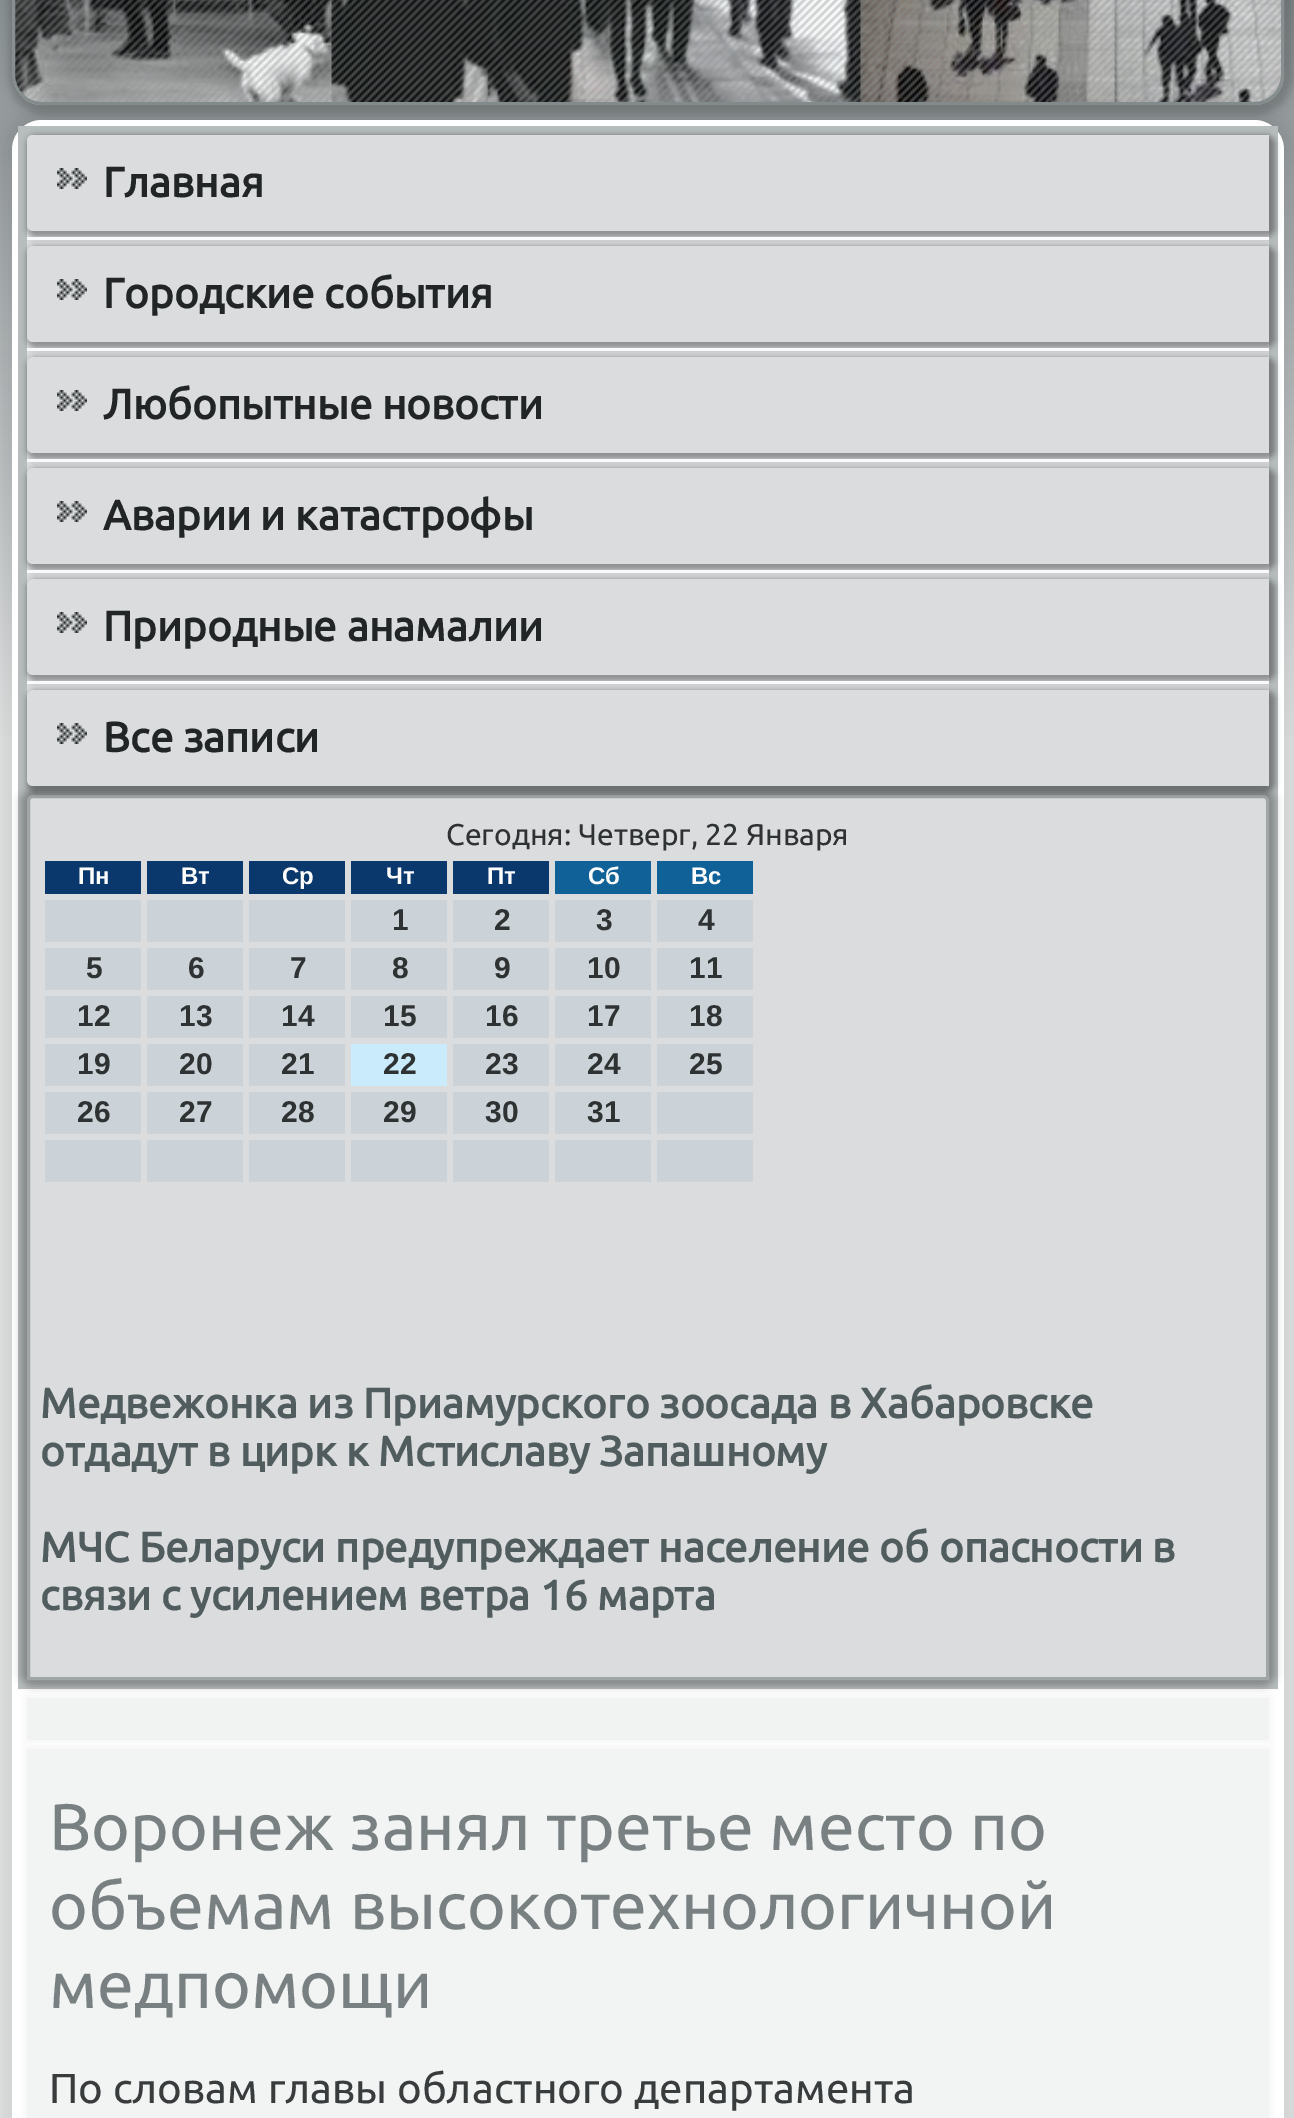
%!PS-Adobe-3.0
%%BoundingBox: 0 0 1294 2118
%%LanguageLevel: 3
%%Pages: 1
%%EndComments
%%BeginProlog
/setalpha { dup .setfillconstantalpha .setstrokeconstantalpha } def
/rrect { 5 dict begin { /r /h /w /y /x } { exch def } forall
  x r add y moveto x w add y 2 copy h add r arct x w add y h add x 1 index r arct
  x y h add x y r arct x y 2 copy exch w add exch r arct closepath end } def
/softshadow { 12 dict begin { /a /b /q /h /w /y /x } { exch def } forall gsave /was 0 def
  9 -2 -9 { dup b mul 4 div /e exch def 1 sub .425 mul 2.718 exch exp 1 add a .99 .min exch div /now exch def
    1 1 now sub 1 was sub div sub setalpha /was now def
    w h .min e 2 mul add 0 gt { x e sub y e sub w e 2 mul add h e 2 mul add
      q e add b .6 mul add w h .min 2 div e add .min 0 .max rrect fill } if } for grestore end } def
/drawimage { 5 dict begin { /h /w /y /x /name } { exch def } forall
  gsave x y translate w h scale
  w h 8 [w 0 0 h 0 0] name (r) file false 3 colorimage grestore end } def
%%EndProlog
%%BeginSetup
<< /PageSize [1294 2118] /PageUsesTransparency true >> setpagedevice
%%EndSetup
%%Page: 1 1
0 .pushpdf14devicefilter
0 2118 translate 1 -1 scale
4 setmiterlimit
1 setgray
0 0 1294 2118 rectfill
gsave newpath 0 0 moveto 1294 0 lineto 1294 2118 lineto 0 2118 lineto closepath clip newpath
<< /ShadingType 2 /ColorSpace /DeviceRGB /Coords [648 0 648 2118] /Extend [true true] /Function << /FunctionType 3 /Domain [0 1] /Functions [<< /FunctionType 2 /Domain [0 1] /C0 [0.533 0.561 0.569] /C1 [0.906 0.914 0.914] /N 1 >> << /FunctionType 2 /Domain [0 1] /C0 [0.906 0.914 0.914] /C1 [0.906 0.914 0.914] /N 1 >>] /Bounds [0.35] /Encode [0 1 0 1] >> >> shfill grestore
gsave
newpath 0 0 moveto 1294 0 lineto 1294 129 lineto 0 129 lineto closepath 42 -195 moveto 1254 -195 lineto 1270.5 -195 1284 -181.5 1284 -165 curveto 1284 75 lineto 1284 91.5 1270.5 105 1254 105 curveto 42 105 lineto 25.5 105 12 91.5 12 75 curveto 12 -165 lineto 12 -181.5 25.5 -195 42 -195 curveto closepath eoclip newpath
0 setgray
9 -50 1284 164 36 4.5 0.2 softshadow
grestore
(images/1.raw) 12 0 1272 105 drawimage
0.533 0.561 0.569 setrgbcolor
3 setlinewidth
13.5 -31.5 1269 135 28.5 rrect stroke
0 setgray
0 108 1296 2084 42 10.5 0.1 softshadow
1 setgray
12 120 1272 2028 30 rrect fill
0.718 0.737 0.741 setrgbcolor
18 126 1260 1563 rectfill
0.855 0.863 0.867 setrgbcolor
27 135 1242 651 6 rrect fill
0 setgray
27 135 1248 102 9 3 0.35 softshadow
0.855 0.863 0.867 setrgbcolor
newpath 33 135 moveto 1269 135 lineto 1269 231 lineto 33 231 lineto 29.5 231 27 228.5 27 225 curveto 27 141 lineto 27 137.5 29.5 135 33 135 curveto closepath fill
(images/2.raw) 57 168 30 21 drawimage
0 setgray
27 246 1248 102 9 3 0.35 softshadow
0.98 setgray
27 237 1242 3 rectfill
0.855 0.863 0.867 setrgbcolor
newpath 33 246 moveto 1269 246 lineto 1269 342 lineto 33 342 lineto 29.5 342 27 339.5 27 336 curveto 27 252 lineto 27 248.5 29.5 246 33 246 curveto closepath fill
(images/2.raw) 57 279 30 21 drawimage
0 setgray
27 357 1248 102 9 3 0.35 softshadow
0.98 setgray
27 348 1242 3 rectfill
0.855 0.863 0.867 setrgbcolor
newpath 33 357 moveto 1269 357 lineto 1269 453 lineto 33 453 lineto 29.5 453 27 450.5 27 447 curveto 27 363 lineto 27 359.5 29.5 357 33 357 curveto closepath fill
(images/2.raw) 57 390 30 21 drawimage
0 setgray
27 468 1248 102 9 3 0.35 softshadow
0.98 setgray
27 459 1242 3 rectfill
0.855 0.863 0.867 setrgbcolor
newpath 33 468 moveto 1269 468 lineto 1269 564 lineto 33 564 lineto 29.5 564 27 561.5 27 558 curveto 27 474 lineto 27 470.5 29.5 468 33 468 curveto closepath fill
(images/2.raw) 57 501 30 21 drawimage
0 setgray
27 579 1248 102 9 3 0.35 softshadow
0.98 setgray
27 570 1242 3 rectfill
0.855 0.863 0.867 setrgbcolor
newpath 33 579 moveto 1269 579 lineto 1269 675 lineto 33 675 lineto 29.5 675 27 672.5 27 669 curveto 27 585 lineto 27 581.5 29.5 579 33 579 curveto closepath fill
(images/2.raw) 57 612 30 21 drawimage
0 setgray
21 789 1254 897 12 4.5 0.3 softshadow
0.855 0.863 0.867 setrgbcolor
newpath 33 796.5 moveto 1263 796.5 lineto 1265.5 796.5 1267.5 798.5 1267.5 801 curveto 1267.5 1678.5 lineto 28.5 1678.5 lineto 28.5 801 lineto 28.5 798.5 30.5 796.5 33 796.5 curveto closepath gsave fill grestore
0.627 0.647 0.655 setrgbcolor
stroke
0 setgray
27 690 1248 102 9 3 0.35 softshadow
0.98 setgray
27 681 1242 3 rectfill
0.855 0.863 0.867 setrgbcolor
newpath 33 690 moveto 1269 690 lineto 1269 786 lineto 33 786 lineto 29.5 786 27 783.5 27 780 curveto 27 696 lineto 27 692.5 29.5 690 33 690 curveto closepath fill
(images/2.raw) 57 723 30 21 drawimage
0.039 0.22 0.424 setrgbcolor
45 861 96 33 rectfill
147 861 96 33 rectfill
249 861 96 33 rectfill
351 861 96 33 rectfill
453 861 96 33 rectfill
0.063 0.38 0.592 setrgbcolor
555 861 96 33 rectfill
657 861 96 33 rectfill
0.796 0.827 0.847 setrgbcolor
45 900 96 42 rectfill
147 900 96 42 rectfill
249 900 96 42 rectfill
351 900 96 42 rectfill
453 900 96 42 rectfill
555 900 96 42 rectfill
657 900 96 42 rectfill
45 948 96 42 rectfill
147 948 96 42 rectfill
249 948 96 42 rectfill
351 948 96 42 rectfill
453 948 96 42 rectfill
555 948 96 42 rectfill
657 948 96 42 rectfill
45 996 96 42 rectfill
147 996 96 42 rectfill
249 996 96 42 rectfill
351 996 96 42 rectfill
453 996 96 42 rectfill
555 996 96 42 rectfill
657 996 96 42 rectfill
45 1044 96 42 rectfill
147 1044 96 42 rectfill
249 1044 96 42 rectfill
0.792 0.922 0.984 setrgbcolor
351 1044 96 42 rectfill
0.796 0.827 0.847 setrgbcolor
453 1044 96 42 rectfill
555 1044 96 42 rectfill
657 1044 96 42 rectfill
45 1092 96 42 rectfill
147 1092 96 42 rectfill
249 1092 96 42 rectfill
351 1092 96 42 rectfill
453 1092 96 42 rectfill
555 1092 96 42 rectfill
657 1092 96 42 rectfill
45 1140 96 42 rectfill
147 1140 96 42 rectfill
249 1140 96 42 rectfill
351 1140 96 42 rectfill
453 1140 96 42 rectfill
555 1140 96 42 rectfill
657 1140 96 42 rectfill
0 setgray
24 1695 1248 48 0 3 0.04 softshadow
0.945 0.949 0.949 setrgbcolor
27 1698 1242 42 rectfill
0 setgray
24 1746 1248 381 0 3 0.04 softshadow
0.949 0.953 0.953 setrgbcolor
27 1749 1242 369 rectfill
/Ubuntu-Bold [42 0 0 -42 0 0] selectfont
0.133 0.145 0.145 setrgbcolor
103 197 moveto (Главная) show
103 308 moveto (Городские события) show
103 419 moveto (Любопытные новости) show
103 530 moveto (Аварии и катастрофы) show
103 641 moveto (Природные анамалии) show
103 752 moveto (Все записи) show
/Ubuntu-Regular [30 0 0 -30 0 0] selectfont
0.184 0.196 0.196 setrgbcolor
446 845 moveto (Сегодня: Четверг, 22 Января) show
/LiberationSans-Bold [24 0 0 -24 0 0] selectfont
1 setgray
78 884 moveto (Пн) show
181 884 moveto (Вт) show
282 884 moveto (Ср) show
386 884 moveto (Чт) show
487 884 moveto (Пт) show
588 884 moveto (Сб) show
691 884 moveto (Вс) show
/LiberationSans-Bold [30 0 0 -30 0 0] selectfont
0.184 0.196 0.196 setrgbcolor
392 930 moveto (1) show
494 930 moveto (2) show
596 930 moveto (3) show
698 930 moveto (4) show
86 978 moveto (5) show
188 978 moveto (6) show
290 978 moveto (7) show
392 978 moveto (8) show
494 978 moveto (9) show
587 978 moveto (10) show
689 978 moveto (11) show
77 1026 moveto (12) show
179 1026 moveto (13) show
281 1026 moveto (14) show
383 1026 moveto (15) show
485 1026 moveto (16) show
587 1026 moveto (17) show
689 1026 moveto (18) show
77 1074 moveto (19) show
179 1074 moveto (20) show
281 1074 moveto (21) show
383 1074 moveto (22) show
485 1074 moveto (23) show
587 1074 moveto (24) show
689 1074 moveto (25) show
77 1122 moveto (26) show
179 1122 moveto (27) show
281 1122 moveto (28) show
383 1122 moveto (29) show
485 1122 moveto (30) show
587 1122 moveto (31) show
/Ubuntu-Bold [42 0 0 -42 0 0] selectfont
0.314 0.361 0.369 setrgbcolor
40 1418 moveto (Медвежонка из Приамурского зоосада в Хабаровске) show
40 1466 moveto (отдадут в цирк к Мстиславу Запашному) show
40 1562 moveto (МЧС Беларуси предупреждает население об опасности в) show
40 1610 moveto (связи с усилением ветра 16 марта) show
/Ubuntu-Regular [66 0 0 -66 0 0] selectfont
0.471 0.502 0.51 setrgbcolor
49 1850 moveto (Воронеж занял третье место по) show
49 1929 moveto (объемам высокотехнологичной) show
49 2008 moveto (медпомощи) show
/Ubuntu-Regular [42 0 0 -42 0 0] selectfont
0.22 0.235 0.239 setrgbcolor
49 2103 moveto (По словам главы областного департамента) show
.poppdf14devicefilter showpage
%%EOF
